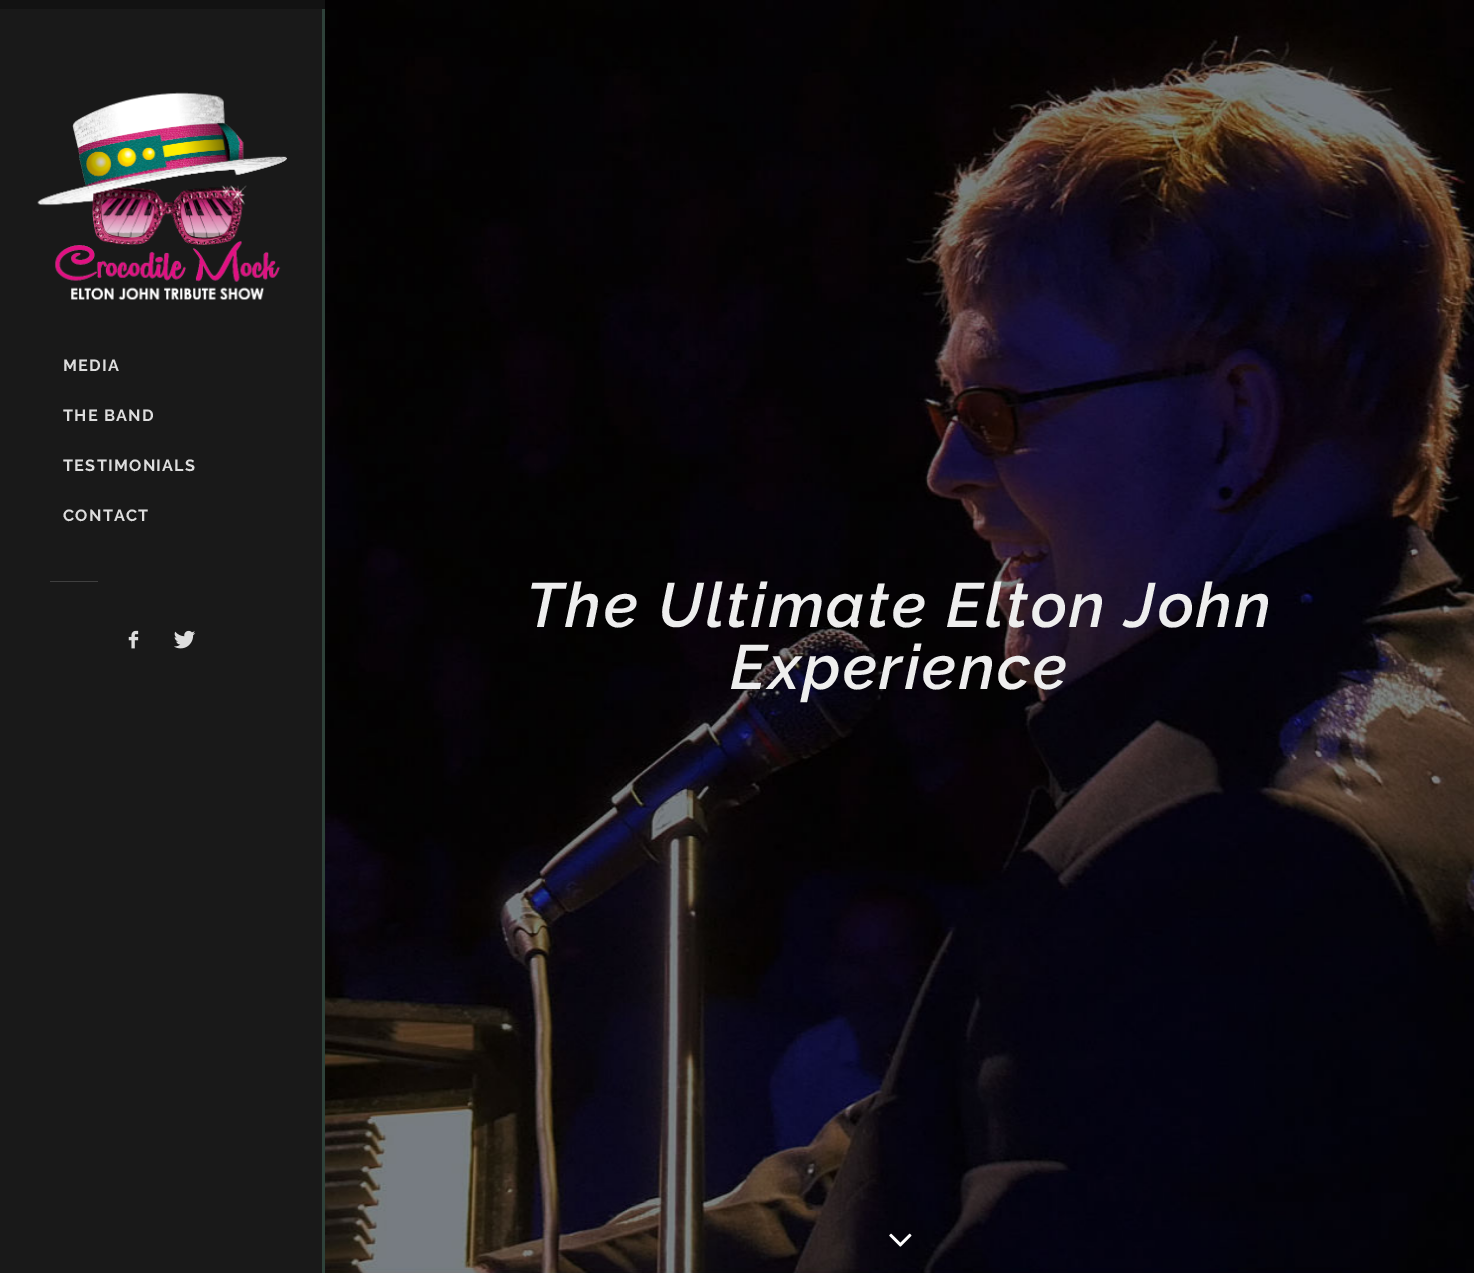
%!PS-Adobe-3.0
%%BoundingBox: 0 0 1474 1273
%%LanguageLevel: 3
%%Pages: 1
%%EndComments
%%BeginProlog
/drawimage { 5 dict begin { /h /w /y /x /name } { exch def } forall
  gsave x y translate w h scale
  w h 8 [w 0 0 h 0 0] name (r) file false 3 colorimage grestore end } def
%%EndProlog
%%BeginSetup
<< /PageSize [1474 1273] >> setpagedevice
%%EndSetup
%%Page: 1 1
0 1273 translate 1 -1 scale
4 setmiterlimit
0.071 setgray
0 0 1474 1273 rectfill
0.098 setgray
0 9 322 1264 rectfill
0.184 0.259 0.227 setrgbcolor
newpath 325 9 moveto 325 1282 lineto 322 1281 lineto 322 9 lineto closepath fill
(images/1.raw) 37 92 250 208 drawimage
0.247 setgray
50 581 48 1 rectfill
(images/2.raw) 128 630 11 19 drawimage
(images/3.raw) 174 630 22 19 drawimage
(images/4.raw) 325 0 1149 1273 drawimage
(images/5.raw) 889 1233 23 14 drawimage
/Raleway-Bold [16.25 0 0 -16.25 0 0] selectfont
0.867 setgray
63 371 moveto 1.25 0 (MEDIA) ashow
63 421 moveto 1.25 0 (THE BAND) ashow
63 471 moveto 1.25 0 (TESTIMONIALS) ashow
63 521 moveto 1.25 0 (CONTACT) ashow
/Raleway-SemiBoldItalic [62.5 0 0 -62.5 0 0] selectfont
0.933 setgray
526 627 moveto 2.5 0 (The Ultimate Elton John) ashow
730 689 moveto 2.5 0 (Experience) ashow
showpage
%%EOF
